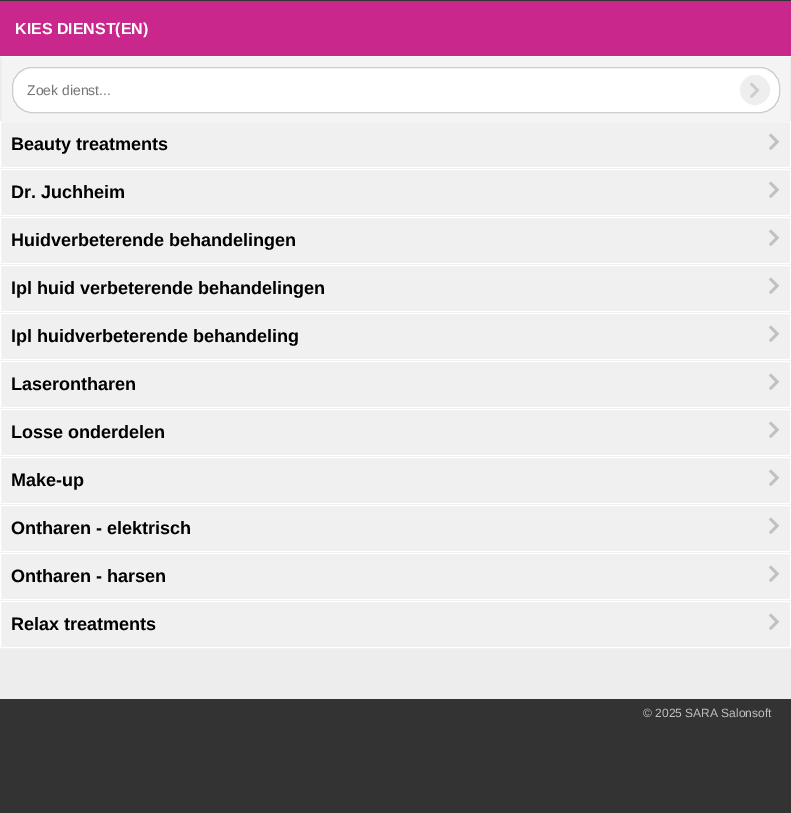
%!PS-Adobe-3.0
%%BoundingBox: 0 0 791 813
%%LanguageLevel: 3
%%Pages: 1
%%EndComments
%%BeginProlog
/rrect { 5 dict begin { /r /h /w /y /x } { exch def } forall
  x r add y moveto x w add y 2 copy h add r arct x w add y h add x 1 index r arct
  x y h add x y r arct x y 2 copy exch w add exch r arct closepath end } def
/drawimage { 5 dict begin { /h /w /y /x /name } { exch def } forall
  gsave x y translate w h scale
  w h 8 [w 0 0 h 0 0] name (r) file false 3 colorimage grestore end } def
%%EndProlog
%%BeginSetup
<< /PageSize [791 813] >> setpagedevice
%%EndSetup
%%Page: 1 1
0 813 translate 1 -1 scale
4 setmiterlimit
0.2 setgray
0 0 791 813 rectfill
0.792 0.153 0.549 setrgbcolor
0 1 791 55 rectfill
1 setgray
0 56 791 1 rectfill
0.929 setgray
0 57 791 642 rectfill
0.941 setgray
newpath 0.5 121.5 moveto 790.5 121.5 lineto 790.5 167.5 lineto 0.5 167.5 lineto closepath gsave fill grestore
1 setgray
stroke
0.957 setgray
2 57 788 66 rectfill
1 setgray
12.5 67.5 767 45 19.5 rrect gsave fill grestore
0.8 setgray
stroke
0.933 setgray
newpath 755 90 14 0 360 arc closepath gsave fill grestore
2 setlinewidth
stroke
(images/1.raw) 750 82 10 16 drawimage
(images/2.raw) 769 133 10 17 drawimage
0.941 setgray
newpath 0.5 169.5 moveto 790.5 169.5 lineto 790.5 215.5 lineto 0.5 215.5 lineto closepath gsave fill grestore
1 setgray
1 setlinewidth
stroke
(images/2.raw) 769 181 10 17 drawimage
0.941 setgray
newpath 0.5 217.5 moveto 790.5 217.5 lineto 790.5 263.5 lineto 0.5 263.5 lineto closepath gsave fill grestore
1 setgray
stroke
(images/2.raw) 769 229 10 17 drawimage
0.941 setgray
newpath 0.5 265.5 moveto 790.5 265.5 lineto 790.5 311.5 lineto 0.5 311.5 lineto closepath gsave fill grestore
1 setgray
stroke
(images/2.raw) 769 277 10 17 drawimage
0.941 setgray
newpath 0.5 313.5 moveto 790.5 313.5 lineto 790.5 359.5 lineto 0.5 359.5 lineto closepath gsave fill grestore
1 setgray
stroke
(images/2.raw) 769 325 10 17 drawimage
0.941 setgray
newpath 0.5 361.5 moveto 790.5 361.5 lineto 790.5 407.5 lineto 0.5 407.5 lineto closepath gsave fill grestore
1 setgray
stroke
(images/2.raw) 769 373 10 17 drawimage
0.941 setgray
newpath 0.5 409.5 moveto 790.5 409.5 lineto 790.5 455.5 lineto 0.5 455.5 lineto closepath gsave fill grestore
1 setgray
stroke
(images/2.raw) 769 421 10 17 drawimage
0.941 setgray
newpath 0.5 457.5 moveto 790.5 457.5 lineto 790.5 503.5 lineto 0.5 503.5 lineto closepath gsave fill grestore
1 setgray
stroke
(images/2.raw) 769 469 10 17 drawimage
0.941 setgray
newpath 0.5 505.5 moveto 790.5 505.5 lineto 790.5 551.5 lineto 0.5 551.5 lineto closepath gsave fill grestore
1 setgray
stroke
(images/2.raw) 769 517 10 17 drawimage
0.941 setgray
newpath 0.5 553.5 moveto 790.5 553.5 lineto 790.5 599.5 lineto 0.5 599.5 lineto closepath gsave fill grestore
1 setgray
stroke
(images/2.raw) 769 565 10 17 drawimage
0.941 setgray
newpath 0.5 601.5 moveto 790.5 601.5 lineto 790.5 647.5 lineto 0.5 647.5 lineto closepath gsave fill grestore
1 setgray
stroke
(images/2.raw) 769 613 10 17 drawimage
/LiberationSans-Bold [16 0 0 -16 0 0] selectfont
15 34 moveto (KIES DIENST\(EN\)) show
/LiberationSans-Regular [14 0 0 -14 0 0] selectfont
0.459 setgray
27 95 moveto (Zoek dienst...) show
/LiberationSans-Bold [18 0 0 -18 0 0] selectfont
0 setgray
11 150 moveto (Beauty treatments) show
11 198 moveto (Dr. Juchheim) show
11 246 moveto (Huidverbeterende behandelingen) show
11 294 moveto (Ipl huid verbeterende behandelingen) show
11 342 moveto (Ipl huidverbeterende behandeling) show
11 390 moveto (Laserontharen) show
11 438 moveto (Losse onderdelen) show
11 486 moveto (Make-up) show
11 534 moveto (Ontharen - elektrisch) show
11 582 moveto (Ontharen - harsen) show
11 630 moveto (Relax treatments) show
/LiberationSans-Regular [12 0 0 -12 0 0] selectfont
0.753 setgray
643 717 moveto (© 2025 SARA Salonsoft) show
showpage
%%EOF
